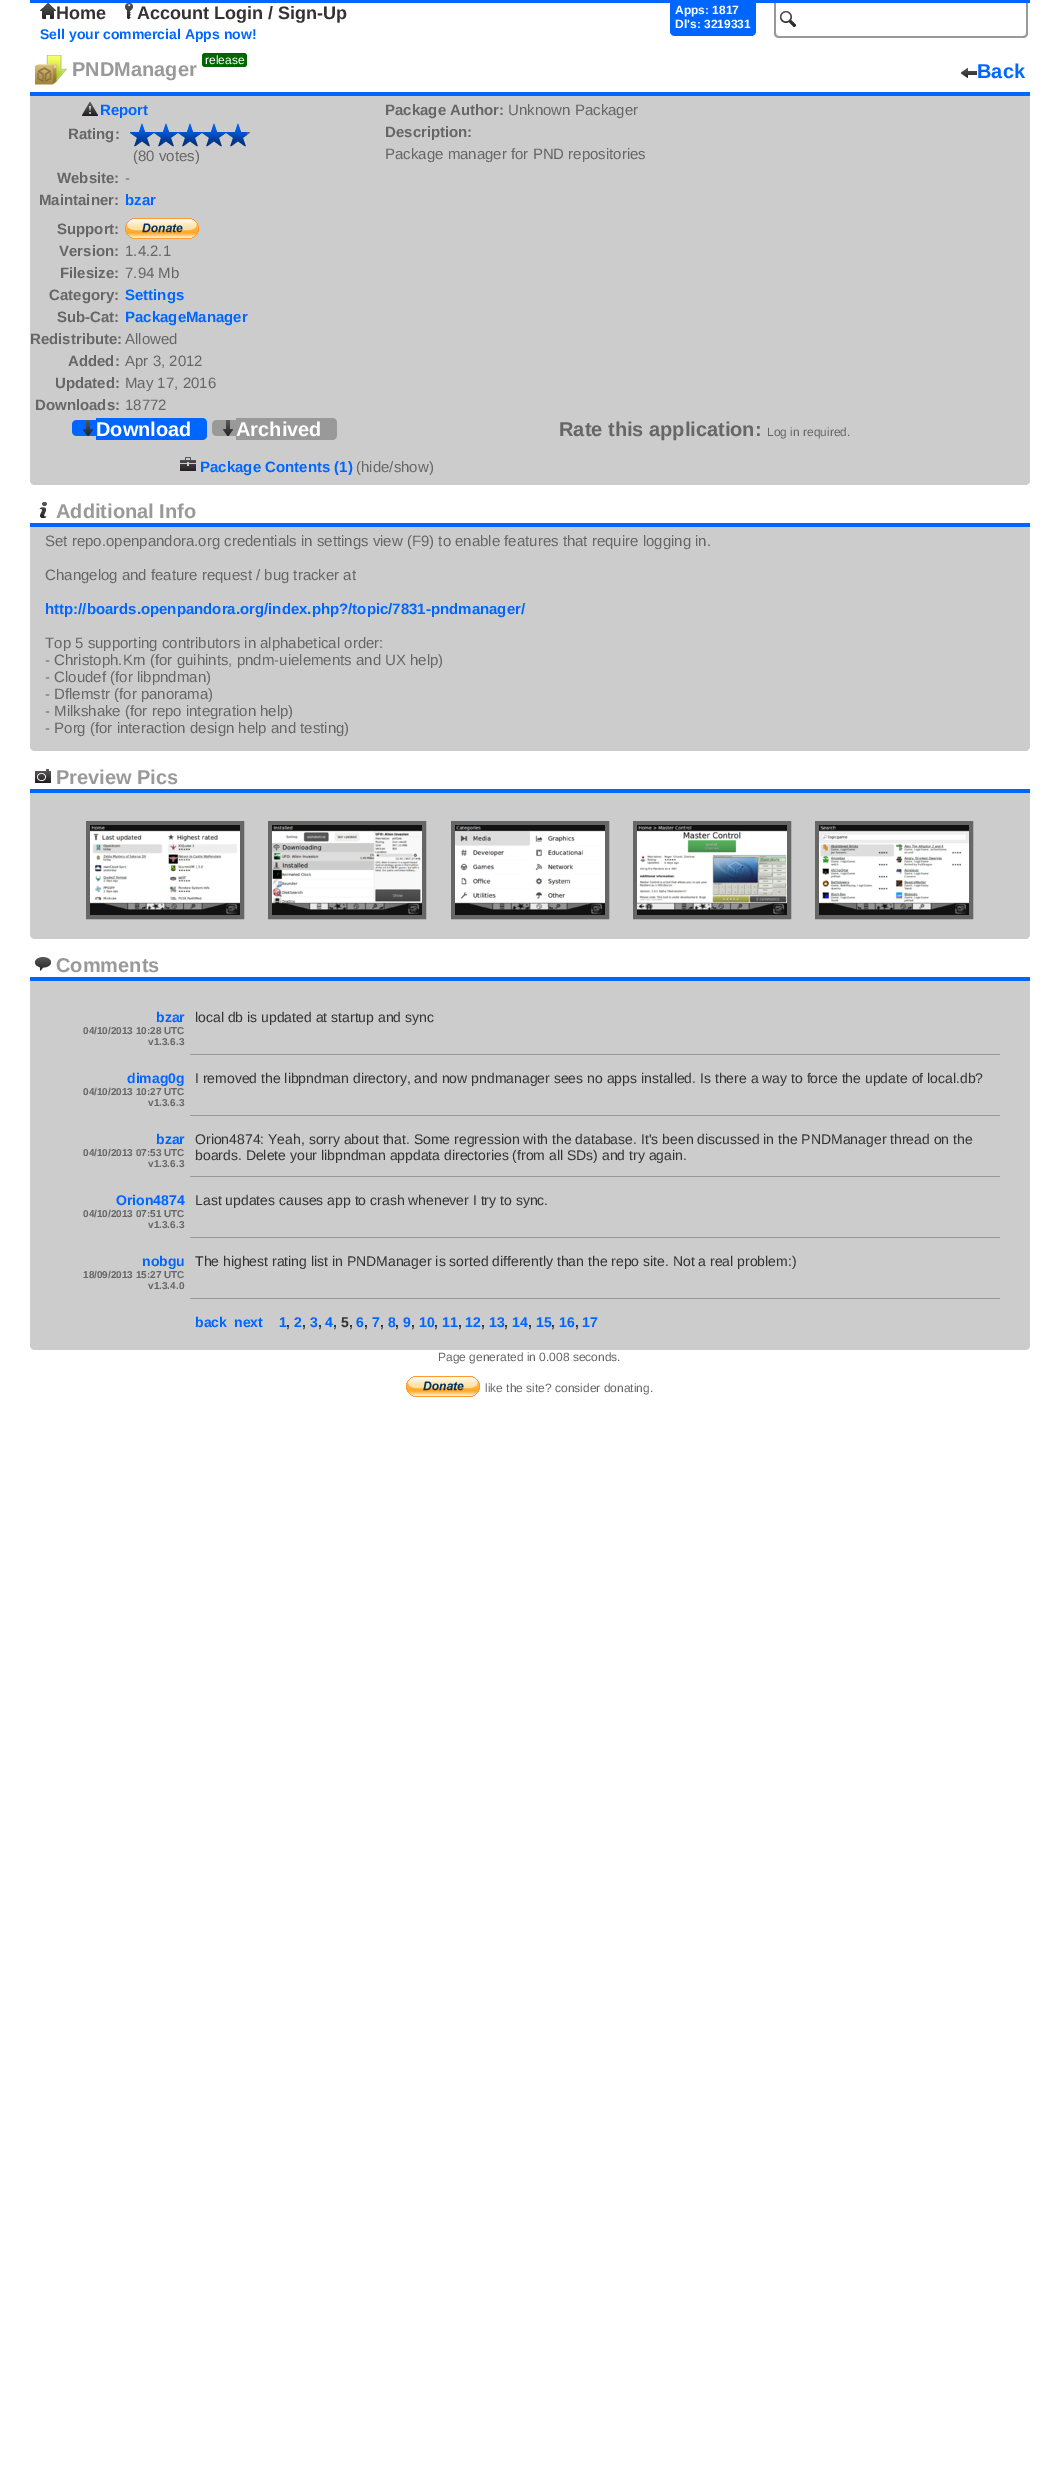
%!PS-Adobe-3.0
%%BoundingBox: 0 0 1059 2475
%%LanguageLevel: 3
%%Pages: 1
%%EndComments
%%BeginProlog
/rrect { 5 dict begin { /r /h /w /y /x } { exch def } forall
  x r add y moveto x w add y 2 copy h add r arct x w add y h add x 1 index r arct
  x y h add x y r arct x y 2 copy exch w add exch r arct closepath end } def
/drawimage { 5 dict begin { /h /w /y /x /name } { exch def } forall
  gsave x y translate w h scale
  w h 8 [w 0 0 h 0 0] name (r) file false 3 colorimage grestore end } def
%%EndProlog
%%BeginSetup
<< /PageSize [1059 2475] >> setpagedevice
%%EndSetup
%%Page: 1 1
0 2475 translate 1 -1 scale
4 setmiterlimit
1 setgray
0 0 1059 2475 rectfill
(images/3.raw) 780 11 16 16 drawimage
0.6 setgray
newpath 774 1 moveto 1028 1 lineto 1028 33 lineto 1028 36 1026 38 1023 38 curveto 779 38 lineto 776 38 774 36 774 33 curveto closepath 776 1 moveto 1026 1 lineto 1026 33 lineto 1026 35 1025 36 1023 36 curveto 779 36 lineto 777 36 776 35 776 33 curveto closepath eofill
0 0.4 1 setrgbcolor
30 0 1000 3 rectfill
(images/1.raw) 40 3 16 16 drawimage
(images/2.raw) 125 3 8 16 drawimage
newpath 670 3 moveto 756 3 lineto 756 31 lineto 756 34 754 36 751 36 curveto 675 36 lineto 672 36 670 34 670 31 curveto closepath fill
0.8 setgray
newpath 30 60 moveto 1030 60 lineto 1030 480 lineto 1030 483 1028 485 1025 485 curveto 35 485 lineto 32 485 30 483 30 480 curveto closepath fill
1 setgray
30 60 1000 32 rectfill
0 0.4 1 setrgbcolor
30 92 1000 4 rectfill
(images/4.raw) 35 55 32 32 drawimage
0 0.4 0 setrgbcolor
202 53 45 14 3 rrect fill
(images/5.raw) 961 68 16 10 drawimage
(images/6.raw) 82 102 16 14 drawimage
(images/7.raw) 130 123 120 24 drawimage
(images/8.raw) 130 123 117 24 drawimage
(images/9.raw) 125 218 74 21 drawimage
0 0.4 1 setrgbcolor
newpath 77 420 moveto 96 420 lineto 96 436 lineto 77 436 lineto 74 436 72 434 72 431 curveto 72 425 lineto 72 422 74 420 77 420 curveto closepath fill
(images/10.raw) 83 420 10 16 drawimage
newpath 96 418 moveto 202 418 lineto 205 418 207 420 207 423 curveto 207 435 lineto 207 438 205 440 202 440 curveto 96 440 lineto closepath fill
0.6 setgray
newpath 217 420 moveto 236 420 lineto 236 436 lineto 217 436 lineto 214 436 212 434 212 431 curveto 212 425 lineto 212 422 214 420 217 420 curveto closepath fill
(images/11.raw) 223 420 10 16 drawimage
newpath 236 418 moveto 332 418 lineto 335 418 337 420 337 423 curveto 337 435 lineto 337 438 335 440 332 440 curveto 236 440 lineto closepath fill
(images/12.raw) 180 457 16 14 drawimage
0.8 setgray
newpath 30 490 moveto 1030 490 lineto 1030 746 lineto 1030 749 1028 751 1025 751 curveto 35 751 lineto 32 751 30 749 30 746 curveto closepath fill
1 setgray
30 490 1000 33 rectfill
0 0.4 1 setrgbcolor
30 523 1000 4 rectfill
(images/13.raw) 39 502 8 16 drawimage
0.8 setgray
newpath 30 756 moveto 1030 756 lineto 1030 934 lineto 1030 937 1028 939 1025 939 curveto 35 939 lineto 32 939 30 937 30 934 curveto closepath fill
1 setgray
30 756 1000 33 rectfill
0 0.4 1 setrgbcolor
30 789 1000 4 rectfill
(images/14.raw) 35 769 16 14 drawimage
0.4 setgray
4 setlinewidth
88 823 154 94 rectstroke
(images/15.raw) 90 825 150 90 drawimage
270 823 154 94 rectstroke
(images/16.raw) 272 825 150 90 drawimage
453 823 154 94 rectstroke
(images/17.raw) 455 825 150 90 drawimage
635 823 154 94 rectstroke
(images/18.raw) 637 825 150 90 drawimage
817 823 154 94 rectstroke
(images/19.raw) 819 825 150 90 drawimage
0.8 setgray
newpath 30 944 moveto 1030 944 lineto 1030 1345 lineto 1030 1348 1028 1350 1025 1350 curveto 35 1350 lineto 32 1350 30 1348 30 1345 curveto closepath fill
1 setgray
30 944 1000 33 rectfill
0 0.4 1 setrgbcolor
30 977 1000 4 rectfill
(images/20.raw) 35 957 16 14 drawimage
0.6 setgray
190 1054 810 1 rectfill
190 1115 810 1 rectfill
190 1176 810 1 rectfill
190 1237 810 1 rectfill
190 1298 810 1 rectfill
(images/21.raw) 406 1376 74 21 drawimage
/LiberationSans-Bold [18 0 0 -18 0 0] selectfont
0.2 setgray
56 19 moveto (Home) show
137 19 moveto (Account Login / Sign-Up) show
/LiberationSans-Bold [12 0 0 -12 0 0] selectfont
1 setgray
675 14 moveto (Apps: 1817) show
675 28 moveto (Dl's: 3219331) show
/LiberationSans-Bold [14 0 0 -14 0 0] selectfont
0 0.4 1 setrgbcolor
40 39 moveto (Sell your commercial Apps now!) show
/LiberationSans-Regular [12 0 0 -12 0 0] selectfont
1 setgray
205 64 moveto (release) show
/LiberationSans-Bold [20 0 0 -20 0 0] selectfont
0.6 setgray
72 76 moveto (PNDManager) show
0 0.4 1 setrgbcolor
977 78 moveto (Back) show
/LiberationSans-Bold [15 0 0 -15 0 0] selectfont
100 115 moveto (Report) show
0.4 setgray
68 139 moveto (Rating:) show
/LiberationSans-Regular [15 0 0 -15 0 0] selectfont
133 161 moveto (\(80 votes\)) show
/LiberationSans-Bold [15 0 0 -15 0 0] selectfont
57 183 moveto (Website:) show
/LiberationSans-Regular [15 0 0 -15 0 0] selectfont
125 183 moveto (-) show
/LiberationSans-Bold [15 0 0 -15 0 0] selectfont
39 205 moveto (Maintainer:) show
0 0.4 1 setrgbcolor
125 205 moveto (bzar) show
0.4 setgray
57 234 moveto (Support:) show
59 256 moveto (Version:) show
/LiberationSans-Regular [15 0 0 -15 0 0] selectfont
125 256 moveto (1.4.2.1) show
/LiberationSans-Bold [15 0 0 -15 0 0] selectfont
60 278 moveto (Filesize:) show
/LiberationSans-Regular [15 0 0 -15 0 0] selectfont
125 278 moveto (7.94 Mb) show
/LiberationSans-Bold [15 0 0 -15 0 0] selectfont
49 300 moveto (Category:) show
0 0.4 1 setrgbcolor
125 300 moveto (Settings) show
0.4 setgray
57 322 moveto (Sub-Cat:) show
0 0.4 1 setrgbcolor
125 322 moveto (PackageManager) show
0.4 setgray
30 344 moveto (Redistribute:) show
/LiberationSans-Regular [15 0 0 -15 0 0] selectfont
125 344 moveto (Allowed) show
/LiberationSans-Bold [15 0 0 -15 0 0] selectfont
68 366 moveto (Added:) show
/LiberationSans-Regular [15 0 0 -15 0 0] selectfont
125 366 moveto (Apr 3, 2012) show
/LiberationSans-Bold [15 0 0 -15 0 0] selectfont
55 388 moveto (Updated:) show
/LiberationSans-Regular [15 0 0 -15 0 0] selectfont
125 388 moveto (May 17, 2016) show
/LiberationSans-Bold [15 0 0 -15 0 0] selectfont
35 410 moveto (Downloads:) show
/LiberationSans-Regular [15 0 0 -15 0 0] selectfont
125 410 moveto (18772) show
/LiberationSans-Bold [15 0 0 -15 0 0] selectfont
385 115 moveto (Package Author:) show
/LiberationSans-Regular [15 0 0 -15 0 0] selectfont
508 115 moveto (Unknown Packager) show
/LiberationSans-Bold [15 0 0 -15 0 0] selectfont
385 137 moveto (Description:) show
/LiberationSans-Regular [15 0 0 -15 0 0] selectfont
385 159 moveto (Package manager for PND repositories) show
/LiberationSans-Bold [20 0 0 -20 0 0] selectfont
1 setgray
96 436 moveto (Download) show
236 436 moveto (Archived) show
0.4 setgray
559 436 moveto (Rate this application:) show
/LiberationSans-Regular [12 0 0 -12 0 0] selectfont
767 436 moveto (Log in required.) show
/LiberationSans-Bold [15 0 0 -15 0 0] selectfont
0 0.4 1 setrgbcolor
200 472 moveto (Package Contents \(1\)) show
/LiberationSans-Regular [15 0 0 -15 0 0] selectfont
0.4 setgray
356 472 moveto (\(hide/show\)) show
/LiberationSans-Bold [20 0 0 -20 0 0] selectfont
0.6 setgray
56 518 moveto (Additional Info) show
/LiberationSans-Regular [15 0 0 -15 0 0] selectfont
0.4 setgray
45 546 moveto (Set repo.openpandora.org credentials in settings view \(F9\) to enable features that require logging in.) show
45 580 moveto (Changelog and feature request / bug tracker at) show
/LiberationSans-Bold [15 0 0 -15 0 0] selectfont
0 0.4 1 setrgbcolor
45 614 moveto (http://boards.openpandora.org/index.php?/topic/7831-pndmanager/) show
/LiberationSans-Regular [15 0 0 -15 0 0] selectfont
0.4 setgray
45 648 moveto (Top 5 supporting contributors in alphabetical order:) show
45 665 moveto (- Christoph.Krn \(for guihints, pndm-uielements and UX help\)) show
45 682 moveto (- Cloudef \(for libpndman\)) show
45 699 moveto (- Dflemstr \(for panorama\)) show
45 716 moveto (- Milkshake \(for repo integration help\)) show
45 733 moveto (- Porg \(for interaction design help and testing\)) show
/LiberationSans-Bold [20 0 0 -20 0 0] selectfont
0.6 setgray
56 784 moveto (Preview Pics) show
56 972 moveto (Comments) show
/LiberationSans-Bold [14 0 0 -14 0 0] selectfont
0 0.4 1 setrgbcolor
156 1022 moveto (bzar) show
/LiberationSans-Bold [10 0 0 -10 0 0] selectfont
0.4 setgray
83 1034 moveto (04/10/2013 10:28 UTC) show
148 1045 moveto (v1.3.6.3) show
/LiberationSans-Regular [14 0 0 -14 0 0] selectfont
0.2 setgray
195 1022 moveto (local db is updated at startup and sync) show
/LiberationSans-Bold [14 0 0 -14 0 0] selectfont
0 0.4 1 setrgbcolor
127 1083 moveto (dimag0g) show
/LiberationSans-Bold [10 0 0 -10 0 0] selectfont
0.4 setgray
83 1095 moveto (04/10/2013 10:27 UTC) show
148 1106 moveto (v1.3.6.3) show
/LiberationSans-Regular [14 0 0 -14 0 0] selectfont
0.2 setgray
195 1083 moveto (I removed the libpndman directory, and now pndmanager sees no apps installed. Is there a way to force the update of local.db?) show
/LiberationSans-Bold [14 0 0 -14 0 0] selectfont
0 0.4 1 setrgbcolor
156 1144 moveto (bzar) show
/LiberationSans-Bold [10 0 0 -10 0 0] selectfont
0.4 setgray
83 1156 moveto (04/10/2013 07:53 UTC) show
148 1167 moveto (v1.3.6.3) show
/LiberationSans-Regular [14 0 0 -14 0 0] selectfont
0.2 setgray
195 1144 moveto (Orion4874: Yeah, sorry about that. Some regression with the database. It's been discussed in the PNDManager thread on the) show
195 1160 moveto (boards. Delete your libpndman appdata directories \(from all SDs\) and try again.) show
/LiberationSans-Bold [14 0 0 -14 0 0] selectfont
0 0.4 1 setrgbcolor
116 1205 moveto (Orion4874) show
/LiberationSans-Bold [10 0 0 -10 0 0] selectfont
0.4 setgray
83 1217 moveto (04/10/2013 07:51 UTC) show
148 1228 moveto (v1.3.6.3) show
/LiberationSans-Regular [14 0 0 -14 0 0] selectfont
0.2 setgray
195 1205 moveto (Last updates causes app to crash whenever I try to sync.) show
/LiberationSans-Bold [14 0 0 -14 0 0] selectfont
0 0.4 1 setrgbcolor
142 1266 moveto (nobgu) show
/LiberationSans-Bold [10 0 0 -10 0 0] selectfont
0.4 setgray
83 1278 moveto (18/09/2013 15:27 UTC) show
148 1289 moveto (v1.3.4.0) show
/LiberationSans-Regular [14 0 0 -14 0 0] selectfont
0.2 setgray
195 1266 moveto (The highest rating list in PNDManager is sorted differently than the repo site. Not a real problem:\)) show
/LiberationSans-Bold [14 0 0 -14 0 0] selectfont
0 0.4 1 setrgbcolor
195 1327 moveto (back) show
234 1327 moveto (next) show
279 1327 moveto (1) show
0.2 setgray
286 1327 moveto (,) show
0 0.4 1 setrgbcolor
294 1327 moveto (2) show
0.2 setgray
302 1327 moveto (,) show
0 0.4 1 setrgbcolor
310 1327 moveto (3) show
0.2 setgray
318 1327 moveto (,) show
0 0.4 1 setrgbcolor
325 1327 moveto (4) show
0.2 setgray
333 1327 moveto (, 5,) show
0 0.4 1 setrgbcolor
356 1327 moveto (6) show
0.2 setgray
364 1327 moveto (,) show
0 0.4 1 setrgbcolor
372 1327 moveto (7) show
0.2 setgray
380 1327 moveto (,) show
0 0.4 1 setrgbcolor
388 1327 moveto (8) show
0.2 setgray
395 1327 moveto (,) show
0 0.4 1 setrgbcolor
403 1327 moveto (9) show
0.2 setgray
411 1327 moveto (,) show
0 0.4 1 setrgbcolor
419 1327 moveto (10) show
0.2 setgray
434 1327 moveto (,) show
0 0.4 1 setrgbcolor
442 1327 moveto (11) show
0.2 setgray
458 1327 moveto (,) show
0 0.4 1 setrgbcolor
465 1327 moveto (12) show
0.2 setgray
481 1327 moveto (,) show
0 0.4 1 setrgbcolor
489 1327 moveto (13) show
0.2 setgray
504 1327 moveto (,) show
0 0.4 1 setrgbcolor
512 1327 moveto (14) show
0.2 setgray
528 1327 moveto (,) show
0 0.4 1 setrgbcolor
536 1327 moveto (15) show
0.2 setgray
551 1327 moveto (,) show
0 0.4 1 setrgbcolor
559 1327 moveto (16) show
0.2 setgray
575 1327 moveto (,) show
0 0.4 1 setrgbcolor
582 1327 moveto (17) show
/LiberationSans-Regular [12 0 0 -12 0 0] selectfont
0.4 setgray
438 1361 moveto (Page generated in 0.008 seconds.) show
485 1392 moveto (like the site? consider donating.) show
showpage
%%EOF
